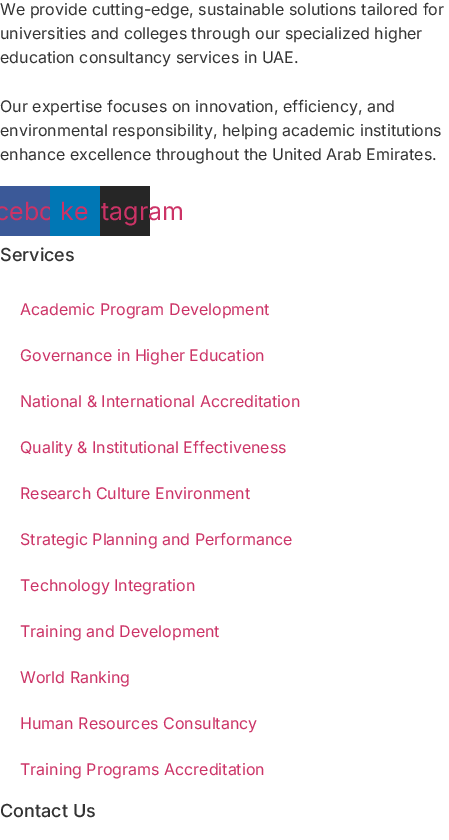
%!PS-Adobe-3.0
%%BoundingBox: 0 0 449 840
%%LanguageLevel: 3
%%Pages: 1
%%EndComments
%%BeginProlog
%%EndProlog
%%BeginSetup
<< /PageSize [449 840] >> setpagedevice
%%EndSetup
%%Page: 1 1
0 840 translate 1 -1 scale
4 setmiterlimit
1 setgray
0 0 449 840 rectfill
0.231 0.349 0.596 setrgbcolor
0 186 50 50 rectfill
0.149 setgray
100 186 50 50 rectfill
/Inter-Regular [16 0 0 -16 0 0] selectfont
0.2 setgray
0 15 moveto (We provide cutting-edge, sustainable solutions tailored for) show
0 39 moveto (universities and colleges through our specialized higher) show
0 63 moveto (education consultancy services in UAE.) show
0 112 moveto (Our expertise focuses on innovation, efficiency, and) show
0 136 moveto (environmental responsibility, helping academic institutions) show
0 160 moveto (enhance excellence throughout the United Arab Emirates.) show
/Inter-Regular [25 0 0 -25 0 0] selectfont
0.8 0.2 0.4 setrgbcolor
-5 220 moveto (cebo) show
0 0.467 0.71 setrgbcolor
50 186 50 50 rectfill
0.8 0.2 0.4 setrgbcolor
60 220 moveto (ke) show
101 220 moveto (tagram) show
/Inter-Medium [18 0 0 -18 0 0] selectfont
0.2 setgray
0 261 moveto (Services) show
/Inter-Regular [16 0 0 -16 0 0] selectfont
0.8 0.2 0.4 setrgbcolor
20 315 moveto (Academic Program Development) show
20 361 moveto (Governance in Higher Education) show
20 407 moveto (National & International Accreditation) show
20 453 moveto (Quality & Institutional Effectiveness) show
20 499 moveto (Research Culture Environment) show
20 545 moveto (Strategic Planning and Performance) show
20 591 moveto (Technology Integration) show
20 637 moveto (Training and Development) show
20 683 moveto (World Ranking) show
20 729 moveto (Human Resources Consultancy) show
20 775 moveto (Training Programs Accreditation) show
/Inter-Medium [18 0 0 -18 0 0] selectfont
0.2 setgray
0 817 moveto (Contact Us) show
showpage
%%EOF
